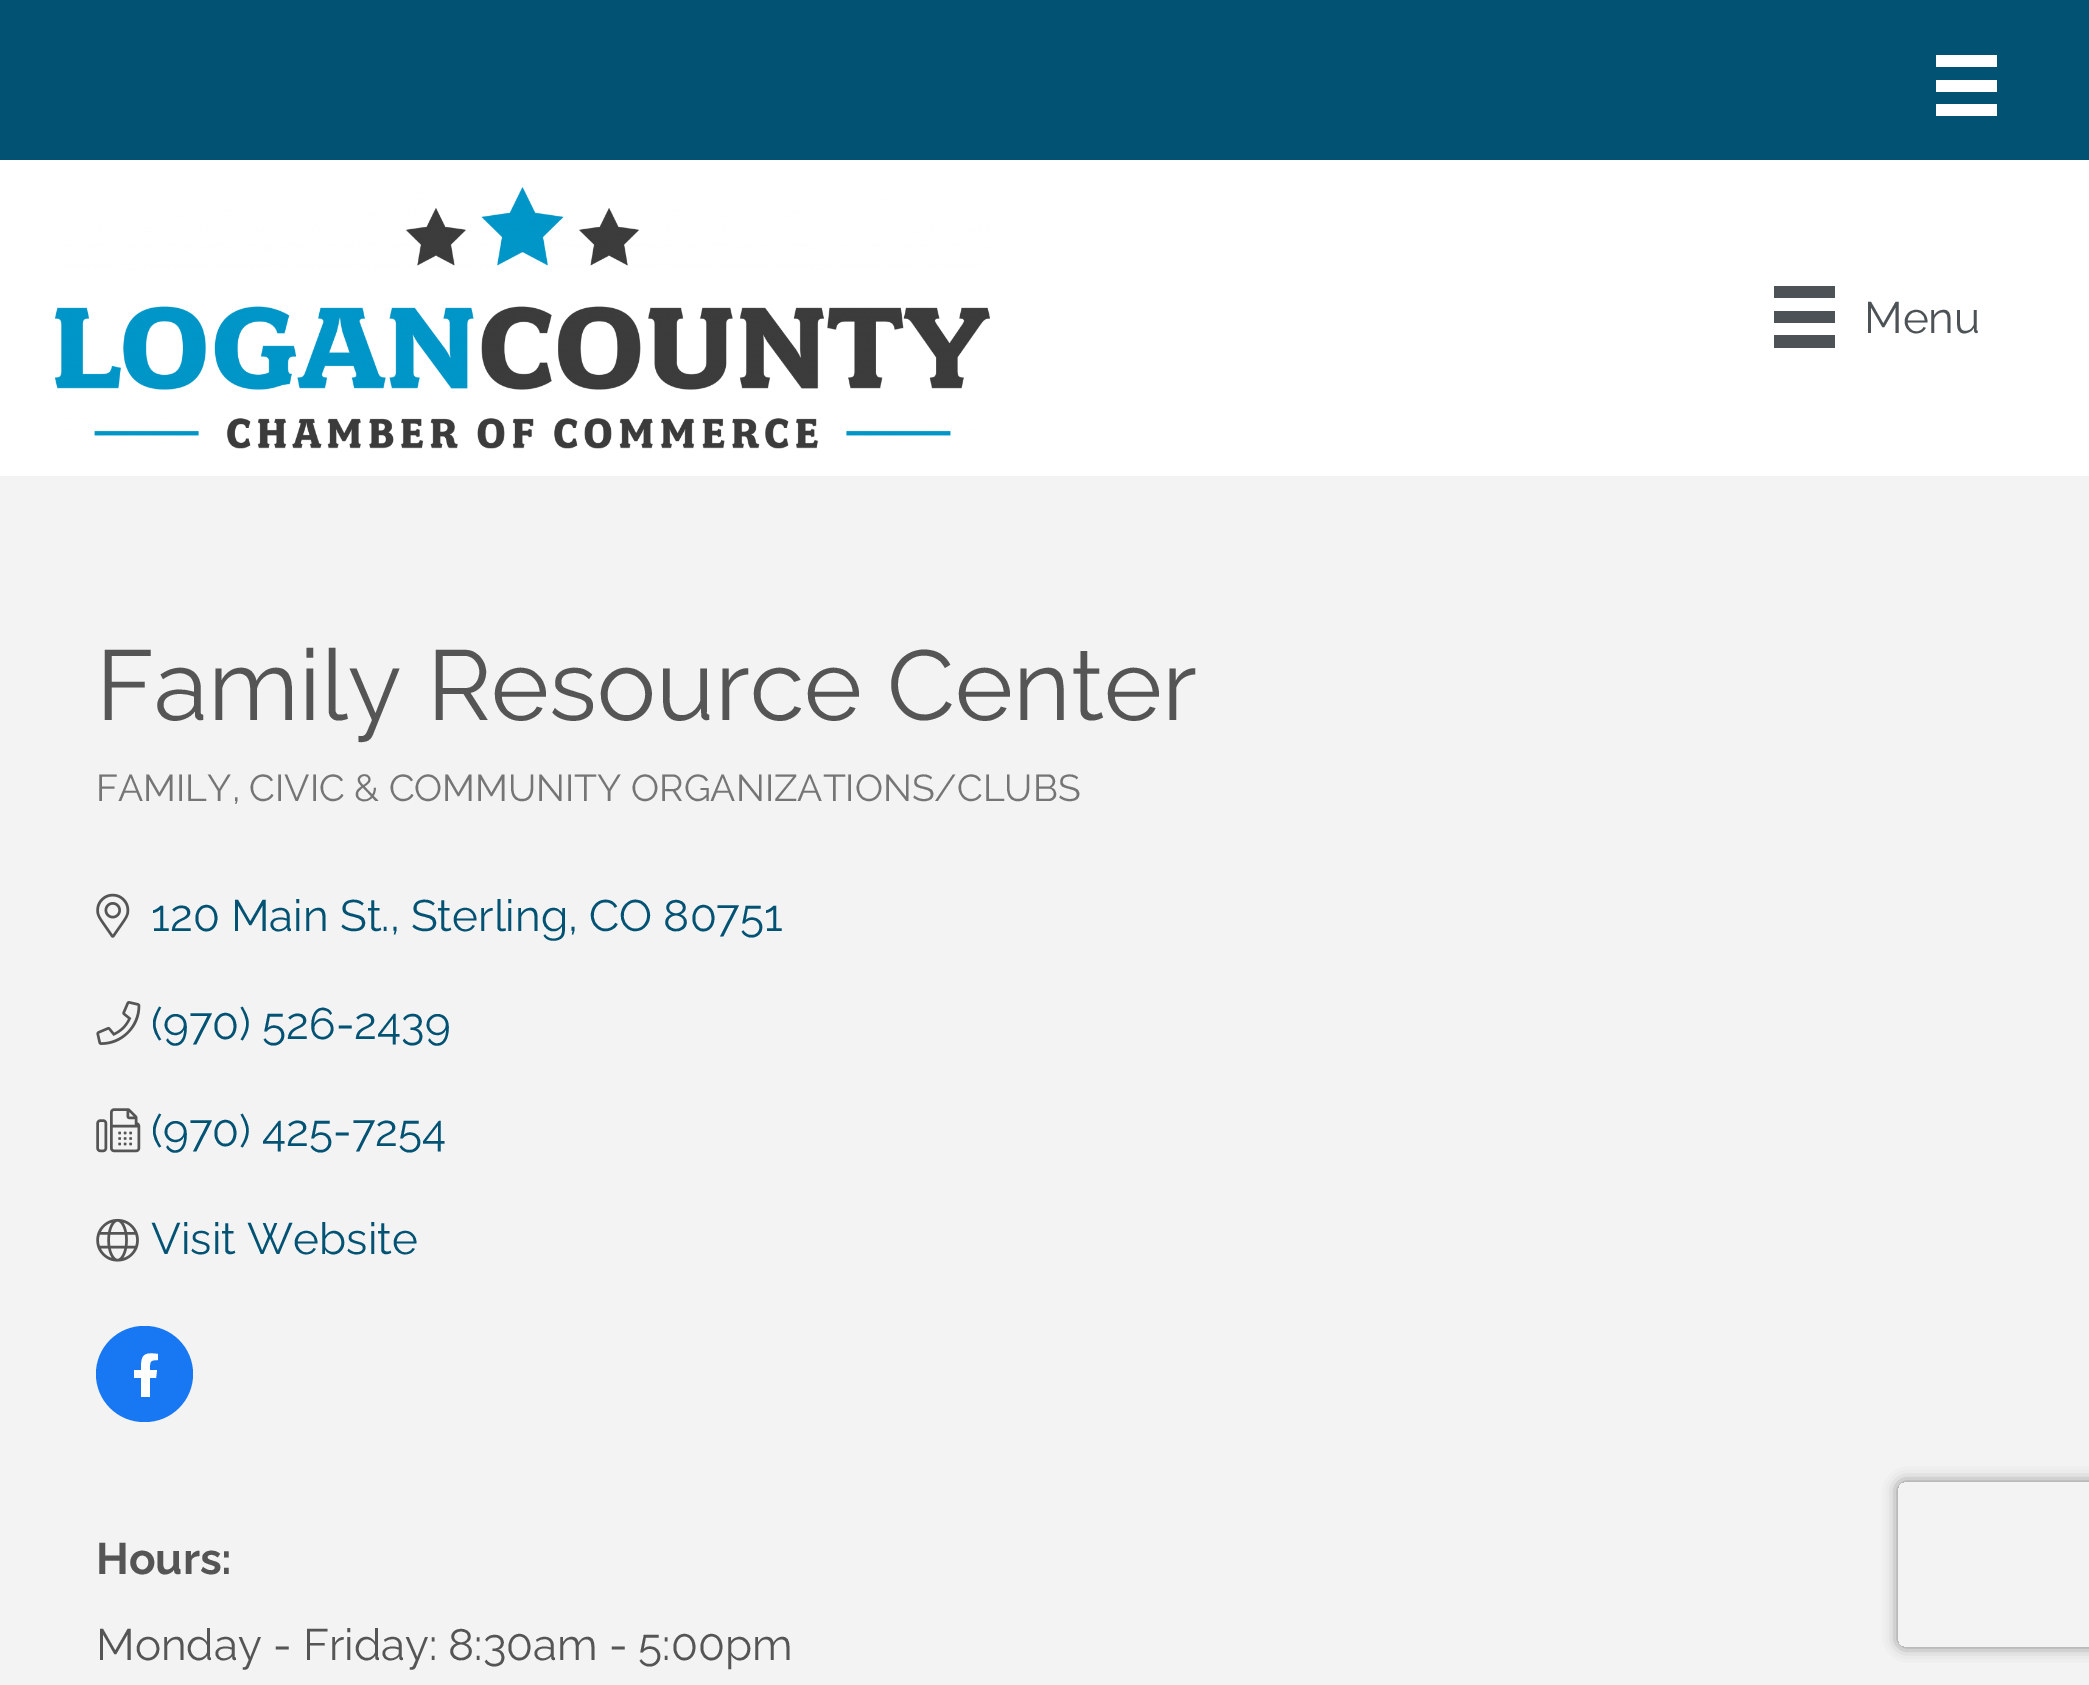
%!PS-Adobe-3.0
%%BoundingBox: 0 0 2089 1685
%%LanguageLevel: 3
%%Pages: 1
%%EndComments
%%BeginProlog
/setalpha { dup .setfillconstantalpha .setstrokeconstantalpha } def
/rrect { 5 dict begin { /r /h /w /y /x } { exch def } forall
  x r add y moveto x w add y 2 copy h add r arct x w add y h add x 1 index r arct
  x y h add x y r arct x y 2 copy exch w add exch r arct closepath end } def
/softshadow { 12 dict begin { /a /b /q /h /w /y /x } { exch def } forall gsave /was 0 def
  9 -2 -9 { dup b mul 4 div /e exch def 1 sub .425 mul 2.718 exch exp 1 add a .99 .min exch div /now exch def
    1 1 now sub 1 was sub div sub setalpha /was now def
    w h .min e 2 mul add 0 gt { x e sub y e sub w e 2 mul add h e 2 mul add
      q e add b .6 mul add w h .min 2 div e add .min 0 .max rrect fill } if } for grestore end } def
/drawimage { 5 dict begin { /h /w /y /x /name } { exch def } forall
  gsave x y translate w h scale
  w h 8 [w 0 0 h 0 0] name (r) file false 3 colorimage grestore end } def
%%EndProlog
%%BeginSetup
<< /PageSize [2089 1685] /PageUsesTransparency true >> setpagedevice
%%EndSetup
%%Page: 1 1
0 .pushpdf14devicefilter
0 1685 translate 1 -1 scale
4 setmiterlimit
1 setgray
0 0 2089 1685 rectfill
0.008 0.322 0.455 setrgbcolor
0 0 2089 160 rectfill
1 setgray
1936 55 61 12 rectfill
1936 80 61 12 rectfill
1936 104 61 12 rectfill
(images/1.raw) 55 187 935 262 drawimage
0.298 0.322 0.337 setrgbcolor
1774 286 61 12 rectfill
1774 311 61 12 rectfill
1774 335 61 13 rectfill
0.953 setgray
0 476 2089 1209 rectfill
(images/2.raw) 96 893 34 45 drawimage
(images/3.raw) 96 1001 45 44 drawimage
(images/4.raw) 96 1108 45 45 drawimage
(images/5.raw) 96 1218 43 44 drawimage
0.094 0.467 0.949 setrgbcolor
96 1326 97 96 48 rrect fill
1 setgray
newpath 156 1378 moveto 150 1378 lineto 150 1397 lineto 141 1397 lineto 141 1378 lineto 134 1378 lineto 134 1370 lineto 141 1370 lineto 141 1355 143 1352 158 1354 curveto 158 1360 lineto 149 1360 150 1362 150 1370 curveto 157 1370 lineto closepath fill
gsave
newpath 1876 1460 moveto 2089 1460 lineto 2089 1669 lineto 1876 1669 lineto closepath 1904 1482 moveto 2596 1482 lineto 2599.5 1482 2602 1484.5 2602 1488 curveto 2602 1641 lineto 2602 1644.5 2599.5 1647 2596 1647 curveto 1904 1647 lineto 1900.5 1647 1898 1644.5 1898 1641 curveto 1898 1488 lineto 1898 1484.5 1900.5 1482 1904 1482 curveto closepath eoclip newpath
0.502 setgray
1898 1482 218 165 6 7 1 softshadow
grestore
/Raleway-Regular [44 0 0 -44 0 0] selectfont
0.298 0.322 0.337 setrgbcolor
1864 333 moveto (Menu) show
/Raleway-Regular [99 0 0 -99 0 0] selectfont
0.333 setgray
96 720 moveto (Family Resource Center) show
/Raleway-Regular [37.4 0 0 -37.4 0 0] selectfont
0.459 setgray
96 801 moveto (FAMILY, CIVIC & COMMUNITY ORGANIZATIONS/CLUBS) show
/Raleway-Regular [44 0 0 -44 0 0] selectfont
0.008 0.322 0.455 setrgbcolor
151 931 moveto (120 Main St., Sterling, CO 80751) show
151 1039 moveto (\(970\) 526-2439) show
151 1146 moveto (\(970\) 425-7254) show
151 1254 moveto (Visit Website) show
/Raleway-Bold [44 0 0 -44 0 0] selectfont
0.333 setgray
96 1574 moveto (Hours:) show
/Raleway-Regular [44 0 0 -44 0 0] selectfont
96 1660 moveto (Monday - Friday: 8:30am - 5:00pm) show
.poppdf14devicefilter showpage
%%EOF
